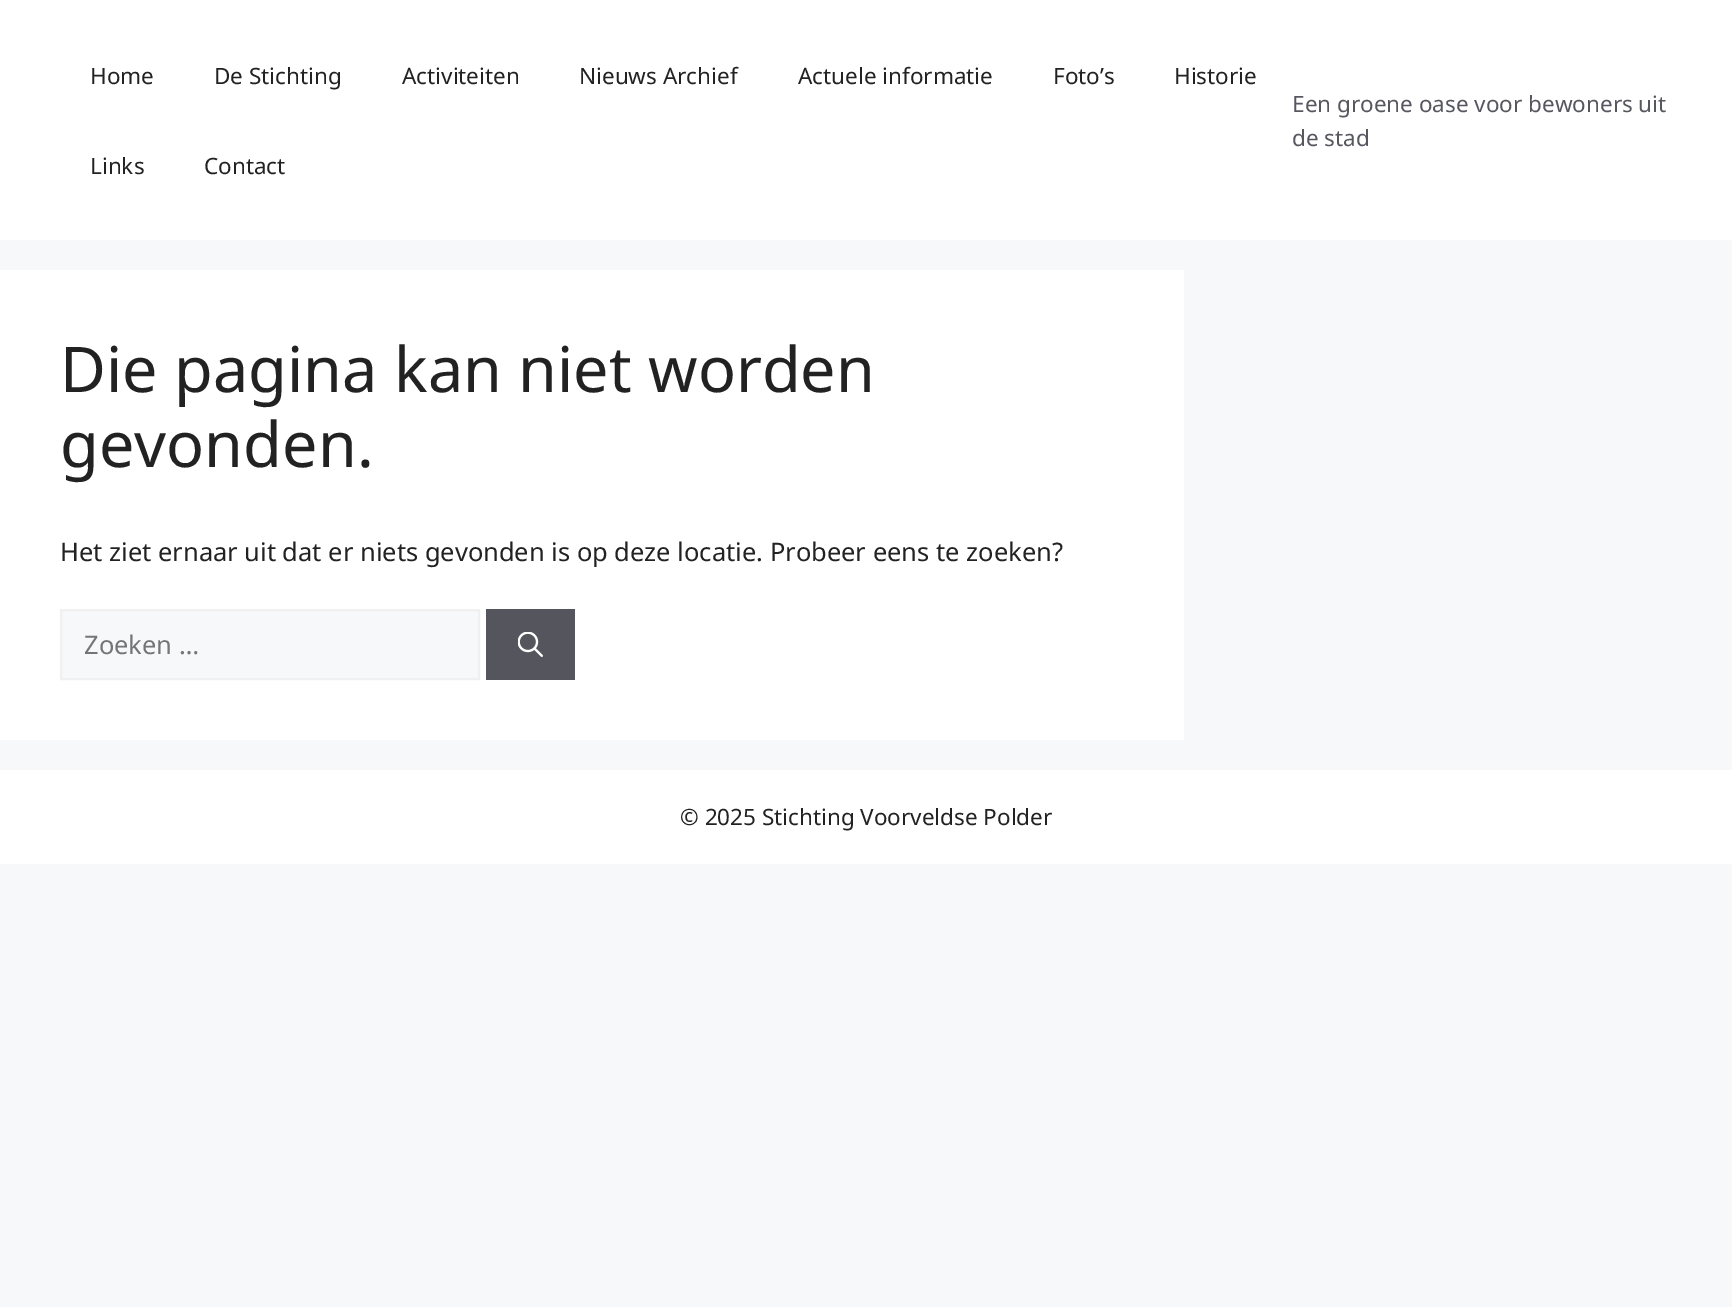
%!PS-Adobe-3.0
%%BoundingBox: 0 0 1732 1307
%%LanguageLevel: 3
%%Pages: 1
%%EndComments
%%BeginProlog
/drawimage { 5 dict begin { /h /w /y /x /name } { exch def } forall
  gsave x y translate w h scale
  w h 8 [w 0 0 h 0 0] name (r) file false 3 colorimage grestore end } def
%%EndProlog
%%BeginSetup
<< /PageSize [1732 1307] >> setpagedevice
%%EndSetup
%%Page: 1 1
0 1307 translate 1 -1 scale
4 setmiterlimit
0.969 0.973 0.976 setrgbcolor
0 0 1732 1307 rectfill
1 setgray
0 0 1732 240 rectfill
0 270 1184 470 rectfill
0.969 0.973 0.976 setrgbcolor
newpath 61 610 moveto 479 610 lineto 479 679 lineto 61 679 lineto closepath gsave fill grestore
0.941 setgray
2 setlinewidth
stroke
0.333 0.333 0.369 setrgbcolor
486 609 89 71 rectfill
(images/1.raw) 518 632 25 25 drawimage
1 setgray
0 770 1732 94 rectfill
/NotoSans-Regular [22.5 0 0 -22.5 0 0] selectfont
0.133 setgray
90 84 moveto (Home) show
214 84 moveto (De Stichting) show
402 84 moveto (Activiteiten) show
579 84 moveto (Nieuws Archief) show
798 84 moveto (Actuele informatie) show
1053 84 moveto (Foto’s) show
1174 84 moveto (Historie) show
90 174 moveto (Links) show
204 174 moveto (Contact) show
0.341 0.341 0.376 setrgbcolor
1292 112 moveto (Een groene oase voor bewoners uit) show
1292 146 moveto (de stad) show
/NotoSans-Regular [63 0 0 -63 0 0] selectfont
0.133 setgray
60 392 moveto (Die pagina kan niet worden) show
60 467 moveto (gevonden.) show
/NotoSans-Regular [25.5 0 0 -25.5 0 0] selectfont
60 561 moveto (Het ziet ernaar uit dat er niets gevonden is op deze locatie. Probeer eens te zoeken?) show
0.459 setgray
84 654 moveto (Zoeken …) show
/NotoSans-Regular [22.5 0 0 -22.5 0 0] selectfont
0.133 setgray
680 825 moveto (© 2025 Stichting Voorveldse Polder) show
showpage
%%EOF
